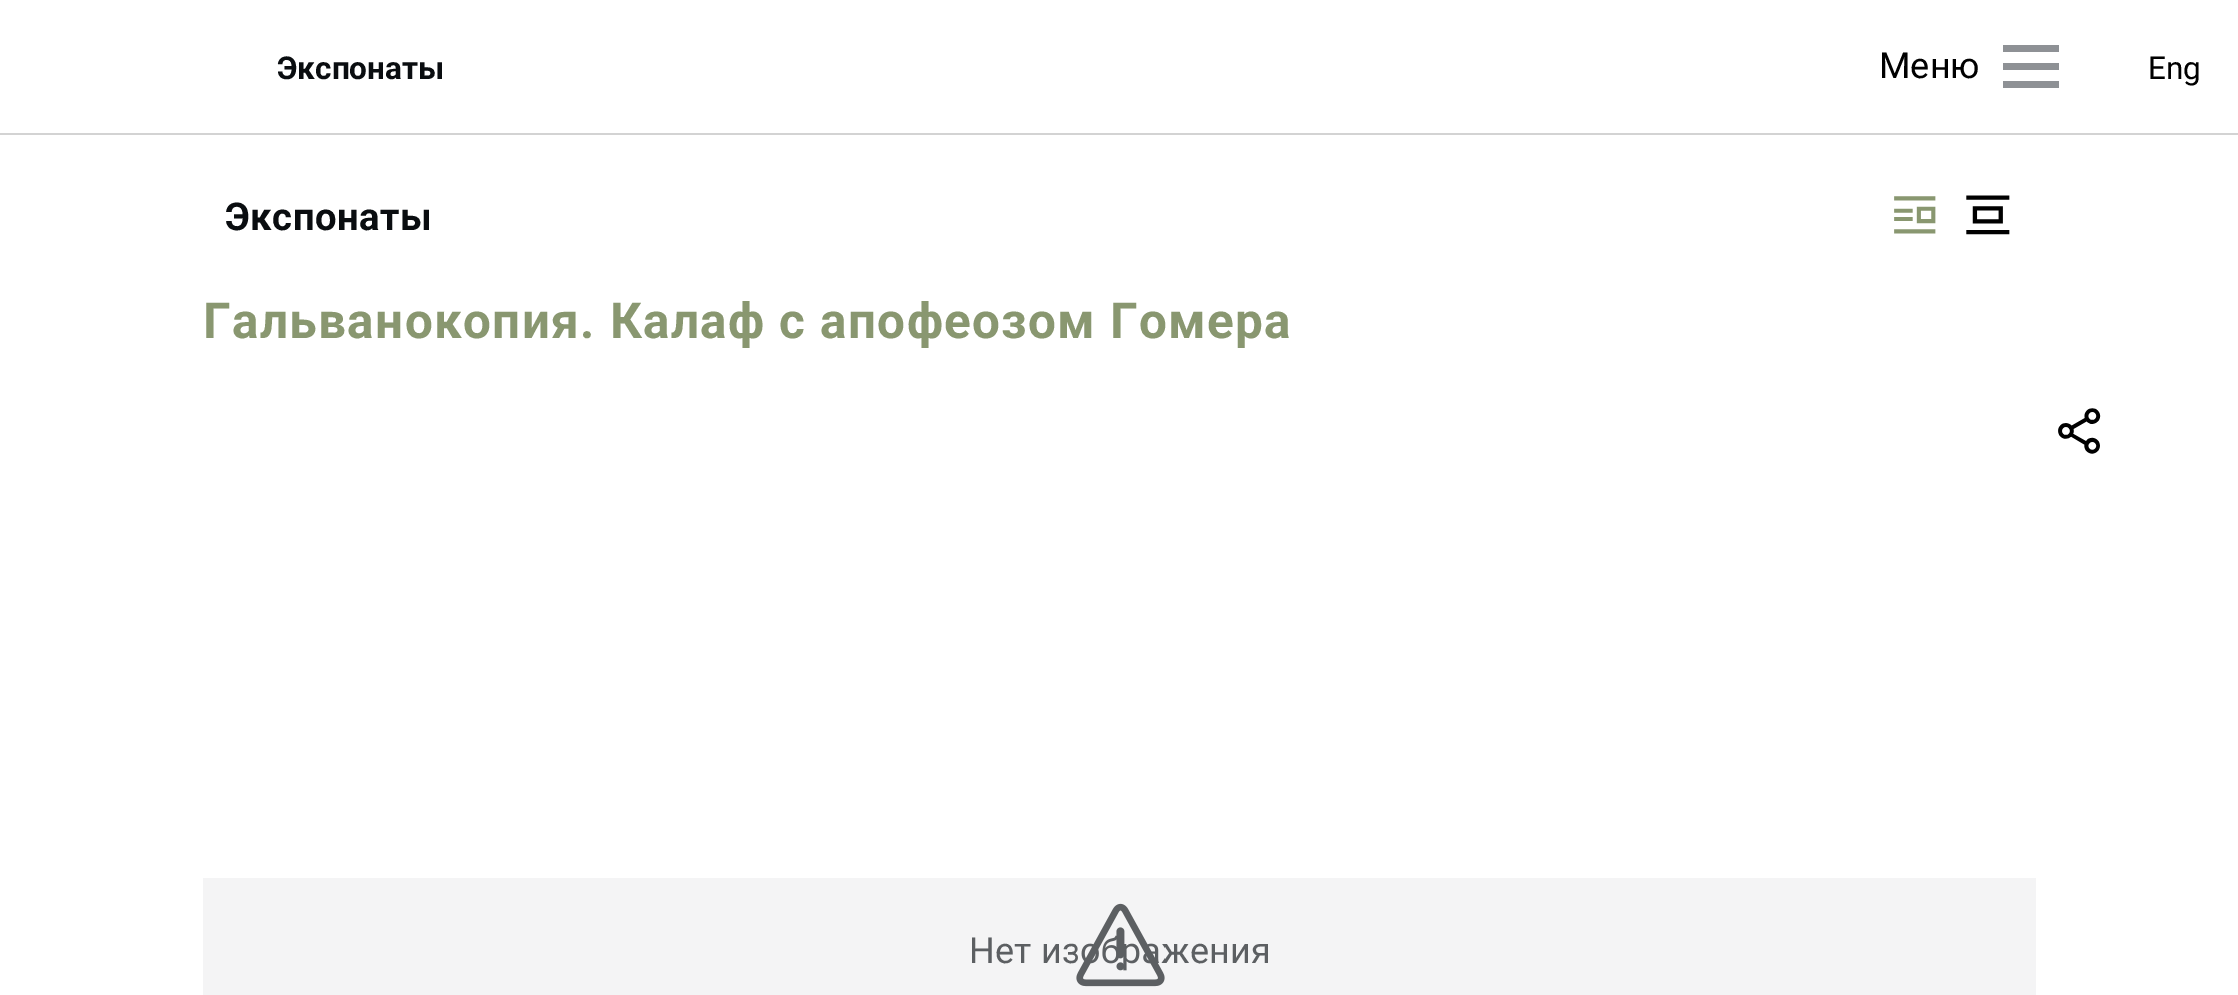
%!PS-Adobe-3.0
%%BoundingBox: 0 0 2238 995
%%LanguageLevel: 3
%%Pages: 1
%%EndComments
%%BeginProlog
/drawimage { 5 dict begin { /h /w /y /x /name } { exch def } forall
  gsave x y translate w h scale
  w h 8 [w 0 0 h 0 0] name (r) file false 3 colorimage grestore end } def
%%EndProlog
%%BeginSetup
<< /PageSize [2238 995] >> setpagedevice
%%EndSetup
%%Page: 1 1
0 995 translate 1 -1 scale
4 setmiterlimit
1 setgray
0 0 2238 995 rectfill
0.827 setgray
0 133 2238 2 rectfill
0.557 0.569 0.584 setrgbcolor
2003 45 56 7 rectfill
2003 63 56 7 rectfill
2003 81 56 7 rectfill
(images/1.raw) 1894 196 42 38 drawimage
(images/2.raw) 1966 195 44 40 drawimage
(images/3.raw) 2058 408 43 46 drawimage
0.957 0.957 0.961 setrgbcolor
203 878 1833 117 rectfill
/Roboto-Bold [31.5 0 0 -31.5 0 0] selectfont
0.039 0.051 0.063 setrgbcolor
277 79 moveto (Экспонаты) show
/Roboto-Regular [36 0 0 -36 0 0] selectfont
0 setgray
1879 78 moveto (Меню) show
/Roboto-Regular [31.5 0 0 -31.5 0 0] selectfont
2148 79 moveto (Eng) show
/Roboto-Bold [38.25 0 0 -38.25 0 0] selectfont
0.039 0.051 0.063 setrgbcolor
225 230 moveto 0.5 0 (Экспонаты) ashow
/Roboto-Bold [49.5 0 0 -49.5 0 0] selectfont
0.537 0.592 0.439 setrgbcolor
203 338 moveto 1.35 0 (Гальванокопия. Калаф с апофеозом Гомера) ashow
/Roboto-Regular [36 0 0 -36 0 0] selectfont
0.361 0.373 0.384 setrgbcolor
969 963 moveto 0.25 0 (Нет изображения) ashow
(images/4.raw) 1076 903 89 84 drawimage
showpage
%%EOF
